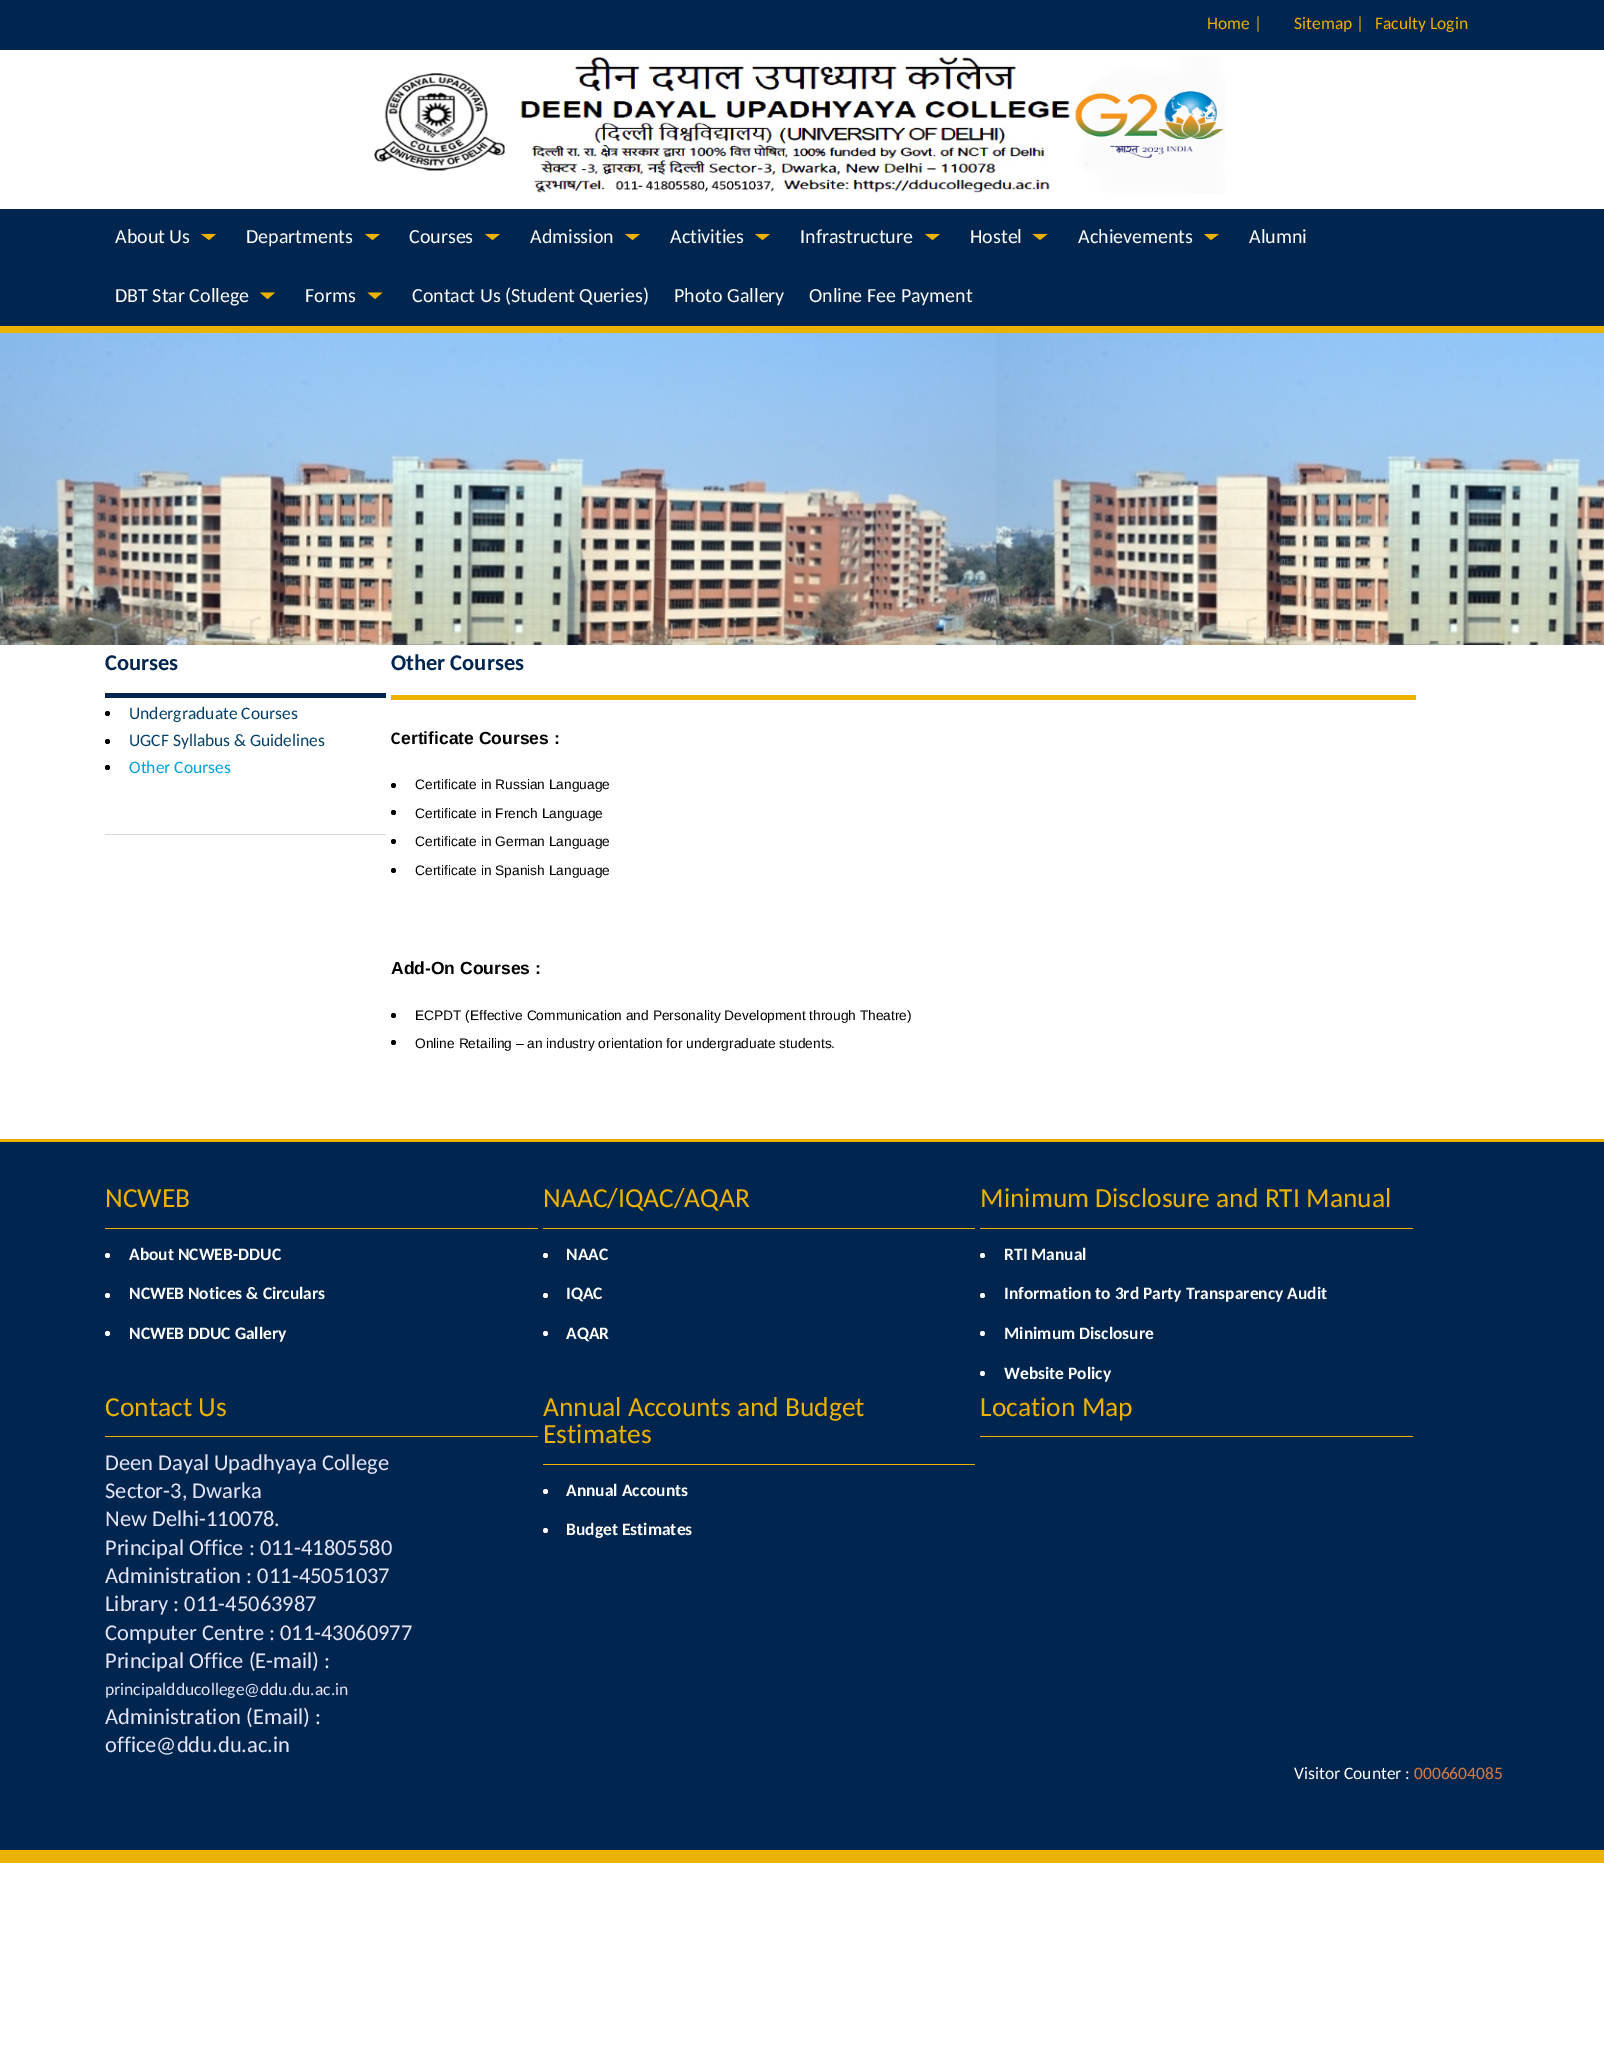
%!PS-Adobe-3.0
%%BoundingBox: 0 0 1604 2052
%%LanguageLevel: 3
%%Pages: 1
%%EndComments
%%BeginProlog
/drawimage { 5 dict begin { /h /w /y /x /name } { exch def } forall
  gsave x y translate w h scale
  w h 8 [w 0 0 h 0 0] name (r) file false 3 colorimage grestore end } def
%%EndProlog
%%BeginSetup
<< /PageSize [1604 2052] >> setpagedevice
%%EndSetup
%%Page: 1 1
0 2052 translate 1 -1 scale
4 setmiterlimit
1 setgray
0 0 1604 2052 rectfill
0 0.145 0.306 setrgbcolor
0 0 1604 50 rectfill
(images/1.raw) 374 56 851 137 drawimage
0 209 1604 117 rectfill
0.925 0.698 0 setrgbcolor
0 326 1604 7 rectfill
newpath 201 234 moveto 216 234 lineto 209 240 lineto closepath fill
newpath 365 234 moveto 380 234 lineto 372.5 240 lineto closepath fill
newpath 485 234 moveto 500 234 lineto 492.5 240 lineto closepath fill
newpath 625 234 moveto 640 234 lineto 632.5 240 lineto closepath fill
newpath 755 234 moveto 770 234 lineto 762.5 240 lineto closepath fill
newpath 925 234 moveto 940 234 lineto 932.5 240 lineto closepath fill
newpath 1032.5 234 moveto 1047.5 234 lineto 1040 240 lineto closepath fill
newpath 1204 234 moveto 1219 234 lineto 1211 240 lineto closepath fill
newpath 260 292.5 moveto 275 292.5 lineto 267.5 299 lineto closepath fill
newpath 367.5 292.5 moveto 382.5 292.5 lineto 375 299 lineto closepath fill
(images/2.raw) 0 333 1604 312 drawimage
0 0.145 0.306 setrgbcolor
105 693 281 5 rectfill
0 setgray
newpath 107.5 713.5 2.5 0 360 arc closepath fill
newpath 107.5 741.5 2.5 0 360 arc closepath fill
newpath 107.5 767.5 2.5 0 360 arc closepath fill
0.851 setgray
105 834 281 1 rectfill
0.925 0.698 0 setrgbcolor
391 695 1025 5 rectfill
0 setgray
newpath 393.5 785.5 2.5 0 360 arc closepath fill
newpath 393.5 812.5 2.5 0 360 arc closepath fill
newpath 393.5 841.5 2.5 0 360 arc closepath fill
newpath 393.5 870.5 2.5 0 360 arc closepath fill
newpath 393.5 1015.5 2.5 0 360 arc closepath fill
newpath 393.5 1042.5 2.5 0 360 arc closepath fill
0 0.145 0.306 setrgbcolor
0 1142 1604 708 rectfill
0.925 0.698 0 setrgbcolor
0 1139 1604 3 rectfill
105 1228 433 1 rectfill
1 setgray
newpath 107.5 1255.5 2.5 0 360 arc closepath fill
newpath 107.5 1295.5 2.5 0 360 arc closepath fill
newpath 107.5 1333.5 2.5 0 360 arc closepath fill
0.925 0.698 0 setrgbcolor
543 1228 432 1 rectfill
1 setgray
newpath 545.5 1255.5 2.5 0 360 arc closepath fill
newpath 545.5 1295.5 2.5 0 360 arc closepath fill
newpath 545.5 1333.5 2.5 0 360 arc closepath fill
0.925 0.698 0 setrgbcolor
980 1228 433 1 rectfill
1 setgray
newpath 982.5 1255.5 2.5 0 360 arc closepath fill
newpath 982.5 1295.5 2.5 0 360 arc closepath fill
newpath 982.5 1333.5 2.5 0 360 arc closepath fill
newpath 982.5 1373.5 2.5 0 360 arc closepath fill
0.925 0.698 0 setrgbcolor
105 1436 433 1 rectfill
543 1464 432 1 rectfill
1 setgray
newpath 545.5 1491.5 2.5 0 360 arc closepath fill
newpath 545.5 1530.5 2.5 0 360 arc closepath fill
0.925 0.698 0 setrgbcolor
980 1436 433 1 rectfill
0 1850 1604 13 rectfill
/Carlito-Regular [17.5 0 0 -17.5 0 0] selectfont
1207 29 moveto (Home |) show
1294 29 moveto (Sitemap |) show
1375 29 moveto (Faculty Login) show
/Carlito-Regular [20 0 0 -20 0 0] selectfont
1 setgray
115 243 moveto (About Us) show
246 243 moveto (Departments) show
409 243 moveto (Courses) show
530 243 moveto (Admission) show
670 243 moveto (Activities) show
800 243 moveto (Infrastructure) show
970 243 moveto (Hostel) show
1078 243 moveto (Achievements) show
1249 243 moveto (Alumni) show
115 302 moveto (DBT Star College) show
305 302 moveto (Forms) show
412 302 moveto (Contact Us \(Student Queries\)) show
674 302 moveto (Photo Gallery) show
809 302 moveto (Online Fee Payment) show
/Carlito-Bold [22.5 0 0 -22.5 0 0] selectfont
0 0.145 0.306 setrgbcolor
105 670 moveto (Courses) show
/Carlito-Regular [17.5 0 0 -17.5 0 0] selectfont
0.027 0.255 0.416 setrgbcolor
129 719 moveto (Undergraduate Courses) show
129 746 moveto (UGCF Syllabus & Guidelines) show
0.012 0.639 0.867 setrgbcolor
129 773 moveto (Other Courses) show
/Carlito-Bold [22.5 0 0 -22.5 0 0] selectfont
0 0.145 0.306 setrgbcolor
391 670 moveto (Other Courses) show
/Carlito-Bold [17.5 0 0 -17.5 0 0] selectfont
0 setgray
391 744 moveto (C) show
/LiberationSans-Bold [17.5 0 0 -17.5 0 0] selectfont
401 744 moveto (ertificate Courses :) show
/LiberationSans-Regular [13.75 0 0 -13.75 0 0] selectfont
415 789 moveto (Certificate in Russian Language) show
415 818 moveto (Certificate in French Language) show
415 846 moveto (Certificate in German Language) show
415 875 moveto (Certificate in Spanish Language) show
/LiberationSans-Bold [17.5 0 0 -17.5 0 0] selectfont
391 974 moveto (Add-On Courses :) show
/LiberationSans-Regular [13.75 0 0 -13.75 0 0] selectfont
415 1020 moveto (ECPDT \(Effective Communication and Personality Development through Theatre\)) show
415 1048 moveto (Online Retailing – an industry orientation for undergraduate students.) show
/Carlito-Regular [27.5 0 0 -27.5 0 0] selectfont
0.925 0.698 0 setrgbcolor
105 1207 moveto (NCWEB) show
/Carlito-Bold [17.5 0 0 -17.5 0 0] selectfont
1 setgray
129 1260 moveto (About NCWEB-DDUC) show
129 1299 moveto (NCWEB Notices & Circulars) show
129 1339 moveto (NCWEB DDUC Gallery) show
/Carlito-Regular [27.5 0 0 -27.5 0 0] selectfont
0.925 0.698 0 setrgbcolor
543 1207 moveto (NAAC/IQAC/AQAR) show
/Carlito-Bold [17.5 0 0 -17.5 0 0] selectfont
1 setgray
566 1260 moveto (NAAC) show
566 1299 moveto (IQAC) show
566 1339 moveto (AQAR) show
/Carlito-Regular [27.5 0 0 -27.5 0 0] selectfont
0.925 0.698 0 setrgbcolor
980 1207 moveto (Minimum Disclosure and RTI Manual) show
/Carlito-Bold [17.5 0 0 -17.5 0 0] selectfont
1 setgray
1004 1260 moveto (RTI Manual) show
1004 1299 moveto (Information to 3rd Party Transparency Audit) show
1004 1339 moveto (Minimum Disclosure) show
1004 1379 moveto (Website Policy) show
/Carlito-Regular [27.5 0 0 -27.5 0 0] selectfont
0.925 0.698 0 setrgbcolor
105 1416 moveto (Contact Us) show
/Carlito-Regular [22.5 0 0 -22.5 0 0] selectfont
0.902 0.902 0.98 setrgbcolor
105 1470 moveto (Deen Dayal Upadhyaya College) show
105 1498 moveto (Sector-3, Dwarka) show
105 1526 moveto (New Delhi-110078.) show
105 1555 moveto (Principal Office : 011-41805580) show
105 1583 moveto (Administration : 011-45051037) show
105 1611 moveto (Library : 011-45063987) show
105 1640 moveto (Computer Centre : 011-43060977) show
105 1668 moveto (Principal Office \(E-mail\) :) show
/Carlito-Regular [17.5 0 0 -17.5 0 0] selectfont
105 1695 moveto (principaldducollege@ddu.du.ac.in) show
/Carlito-Regular [22.5 0 0 -22.5 0 0] selectfont
105 1724 moveto (Administration \(Email\) :) show
105 1752 moveto (office@ddu.du.ac.in) show
/Carlito-Regular [27.5 0 0 -27.5 0 0] selectfont
0.925 0.698 0 setrgbcolor
543 1416 moveto (Annual Accounts and Budget) show
543 1443 moveto (Estimates) show
/Carlito-Bold [17.5 0 0 -17.5 0 0] selectfont
1 setgray
566 1496 moveto (Annual Accounts) show
566 1535 moveto (Budget Estimates) show
/Carlito-Regular [27.5 0 0 -27.5 0 0] selectfont
0.925 0.698 0 setrgbcolor
980 1416 moveto (Location Map) show
/Carlito-Regular [17.5 0 0 -17.5 0 0] selectfont
1 setgray
1294 1779 moveto (Visitor Counter :) show
0.839 0.486 0.271 setrgbcolor
1414 1779 moveto (0006604085) show
showpage
%%EOF
